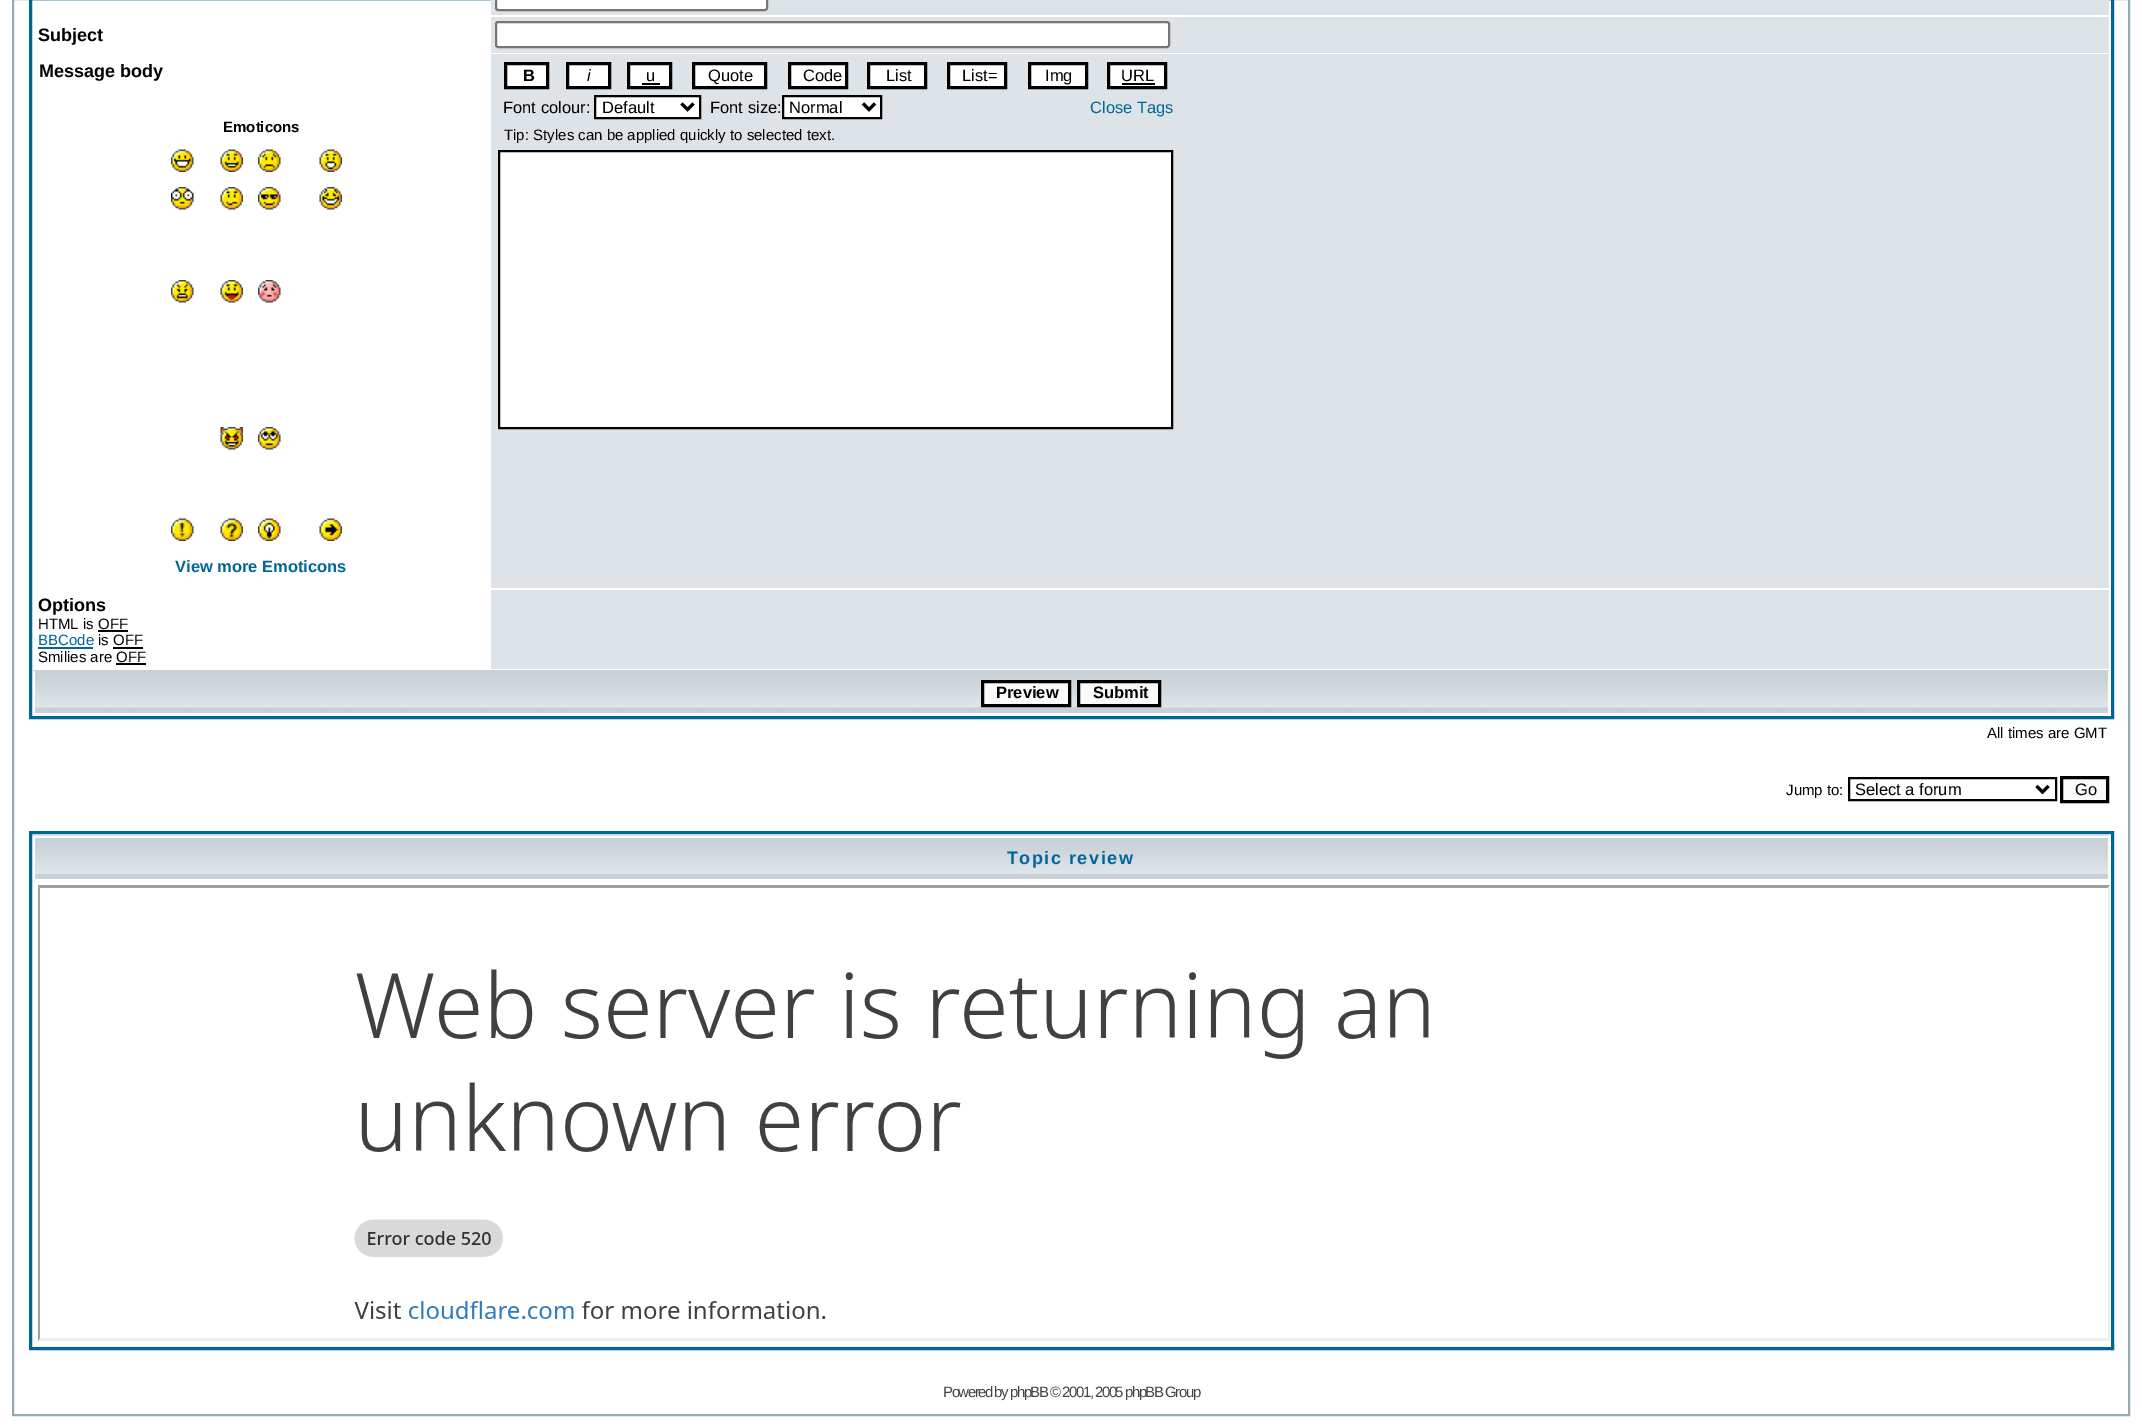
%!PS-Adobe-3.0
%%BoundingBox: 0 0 2142 1428
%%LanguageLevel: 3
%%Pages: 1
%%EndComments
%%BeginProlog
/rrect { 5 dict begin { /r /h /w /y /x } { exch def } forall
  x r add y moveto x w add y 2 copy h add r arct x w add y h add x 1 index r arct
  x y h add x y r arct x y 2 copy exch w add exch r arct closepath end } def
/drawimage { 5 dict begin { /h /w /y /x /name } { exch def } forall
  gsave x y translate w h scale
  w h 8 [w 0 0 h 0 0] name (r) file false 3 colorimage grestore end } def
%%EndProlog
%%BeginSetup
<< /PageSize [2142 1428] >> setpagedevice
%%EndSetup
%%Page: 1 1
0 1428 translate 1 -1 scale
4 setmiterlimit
1 setgray
0 0 2142 1428 rectfill
0.596 0.667 0.694 setrgbcolor
2 setlinewidth
13 -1 2116 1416 rectstroke
0 0.4 0.6 setrgbcolor
3 setlinewidth
30.5 -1.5 2082 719 rectstroke
0.871 0.89 0.906 setrgbcolor
491 0 1618 15 rectfill
1 setgray
496 -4 271 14 2 rrect gsave fill grestore
0.463 setgray
2 setlinewidth
stroke
0.871 0.89 0.906 setrgbcolor
491 17 1618 36 rectfill
1 setgray
496 22 673 25 2 rrect gsave fill grestore
0.463 setgray
stroke
(images/1.raw) 171 149 23 23 drawimage
(images/2.raw) 220 149 23 23 drawimage
(images/3.raw) 258 149 23 23 drawimage
(images/4.raw) 319 149 23 23 drawimage
(images/5.raw) 171 187 23 23 drawimage
(images/6.raw) 220 187 23 23 drawimage
(images/7.raw) 258 187 23 23 drawimage
(images/8.raw) 319 187 23 23 drawimage
(images/9.raw) 171 280 23 23 drawimage
(images/10.raw) 220 280 23 23 drawimage
(images/11.raw) 258 280 23 23 drawimage
(images/12.raw) 220 427 23 23 drawimage
(images/13.raw) 258 427 23 23 drawimage
(images/14.raw) 171 518 23 23 drawimage
(images/15.raw) 220 518 23 23 drawimage
(images/16.raw) 258 518 23 23 drawimage
(images/17.raw) 319 518 23 23 drawimage
0.871 0.89 0.906 setrgbcolor
491 54 1618 534 rectfill
1 setgray
newpath 505.5 63.5 moveto 547.5 63.5 lineto 547.5 87.5 lineto 505.5 87.5 lineto closepath gsave fill grestore
0 setgray
3 setlinewidth
stroke
1 setgray
newpath 567.5 63.5 moveto 609.5 63.5 lineto 609.5 87.5 lineto 567.5 87.5 lineto closepath gsave fill grestore
0 setgray
stroke
1 setgray
newpath 628.5 63.5 moveto 670.5 63.5 lineto 670.5 87.5 lineto 628.5 87.5 lineto closepath gsave fill grestore
0 setgray
stroke
642 83 18 2 rectfill
1 setgray
newpath 693.5 63.5 moveto 765.5 63.5 lineto 765.5 87.5 lineto 693.5 87.5 lineto closepath gsave fill grestore
0 setgray
stroke
1 setgray
newpath 789.5 63.5 moveto 846.5 63.5 lineto 846.5 87.5 lineto 789.5 87.5 lineto closepath gsave fill grestore
0 setgray
stroke
1 setgray
newpath 868.5 63.5 moveto 925.5 63.5 lineto 925.5 87.5 lineto 868.5 87.5 lineto closepath gsave fill grestore
0 setgray
stroke
1 setgray
newpath 948.5 63.5 moveto 1005.5 63.5 lineto 1005.5 87.5 lineto 948.5 87.5 lineto closepath gsave fill grestore
0 setgray
stroke
1 setgray
newpath 1029.5 63.5 moveto 1086.5 63.5 lineto 1086.5 87.5 lineto 1029.5 87.5 lineto closepath gsave fill grestore
0 setgray
stroke
1 setgray
newpath 1108.5 63.5 moveto 1165.5 63.5 lineto 1165.5 87.5 lineto 1108.5 87.5 lineto closepath gsave fill grestore
0 setgray
stroke
1122 83 33 2 rectfill
1 setgray
newpath 595 96 moveto 700 96 lineto 700 118 lineto 595 118 lineto closepath gsave fill grestore
0 setgray
2 setlinewidth
stroke
3 setlinewidth
newpath 681.5 103.5 moveto 687.5 109.5 lineto 693.5 103.5 lineto stroke
1 setgray
newpath 783 96 moveto 881 96 lineto 881 118 lineto 783 118 lineto closepath gsave fill grestore
0 setgray
2 setlinewidth
stroke
3 setlinewidth
newpath 863 103.5 moveto 869 109.5 lineto 875 103.5 lineto stroke
1 setgray
newpath 499 151 moveto 1172 151 lineto 1172 428 lineto 499 428 lineto closepath gsave fill grestore
0 setgray
2 setlinewidth
stroke
98 630 30 2 rectfill
0 0.4 0.6 setrgbcolor
38 647 55 2 rectfill
0 setgray
113 647 30 2 rectfill
116 663 30 2 rectfill
0.871 0.89 0.906 setrgbcolor
491 590 1618 79 rectfill
(images/18.raw) 33 670 2076 43 drawimage
1 setgray
2108 671 1 43 rectfill
33 671 2 43 rectfill
0.98 setgray
newpath 982.5 681.5 moveto 1069.5 681.5 lineto 1069.5 705.5 lineto 982.5 705.5 lineto closepath gsave fill grestore
0 setgray
3 setlinewidth
stroke
0.98 setgray
newpath 1078.5 681.5 moveto 1159.5 681.5 lineto 1159.5 705.5 lineto 1078.5 705.5 lineto closepath gsave fill grestore
0 setgray
stroke
2 setlinewidth
1849 778 207 22 rectstroke
3 setlinewidth
newpath 2036.5 786 moveto 2042.5 792 lineto 2048.5 786 lineto stroke
0.98 setgray
newpath 2061.5 777.5 moveto 2107.5 777.5 lineto 2107.5 801.5 lineto 2061.5 801.5 lineto closepath gsave fill grestore
0 setgray
stroke
0 0.4 0.6 setrgbcolor
30.5 832.5 2082 516 rectstroke
0.82 0.843 0.863 setrgbcolor
35 878 2073 1 rectfill
(images/19.raw) 33 835 2076 44 drawimage
1 setgray
33 836 2076 2 rectfill
2108 836 1 43 rectfill
33 836 2 43 rectfill
0.624 setgray
newpath 38 885 moveto 2110 885 lineto 2108 888 lineto 40 888 lineto closepath fill
0.933 setgray
newpath 2110 885 moveto 2110 1341 lineto 2108 1338 lineto 2108 888 lineto closepath fill
newpath 2110 1341 moveto 38 1341 lineto 40 1338 lineto 2108 1338 lineto closepath fill
0.624 setgray
newpath 38 1341 moveto 38 885 lineto 40 888 lineto 40 1338 lineto closepath fill
(images/20.raw) 354 969 1075 350 drawimage
/LiberationSans-Bold [18 0 0 -18 0 0] selectfont
0 setgray
38 41 moveto (Subject) show
39 77 moveto (Message body) show
/LiberationSans-Bold [15 0 0 -15 0 0] selectfont
223 132 moveto (Emoticons) show
/LiberationSans-Bold [16.5 0 0 -16.5 0 0] selectfont
0 0.4 0.6 setrgbcolor
175 572 moveto (View more Emoticons) show
0 setgray
523 81 moveto (B) show
/LiberationSans-Italic [16.5 0 0 -16.5 0 0] selectfont
587 81 moveto (i) show
/LiberationSans-Regular [16.5 0 0 -16.5 0 0] selectfont
646 81 moveto (u) show
708 81 moveto (Quote) show
803 81 moveto (Code) show
886 81 moveto (List) show
962 81 moveto (List=) show
1045 81 moveto (Img) show
1121 81 moveto (URL) show
503 113 moveto (Font colour:) show
602 113 moveto (Default) show
710 113 moveto (Font size:) show
789 113 moveto (Normal) show
0 0.4 0.6 setrgbcolor
1090 113 moveto (Close Tags) show
gsave
501 126 669 17 rectclip
/LiberationSans-Regular [15 0 0 -15 0 0] selectfont
0 setgray
504 140 moveto (Tip: Styles can be applied quickly to selected text.) show
grestore
/LiberationSans-Bold [18 0 0 -18 0 0] selectfont
0 setgray
38 611 moveto (Options) show
/LiberationSans-Regular [15 0 0 -15 0 0] selectfont
38 629 moveto (HTML is OFF) show
0 0.4 0.6 setrgbcolor
38 645 moveto (BBCode) show
0 setgray
98 645 moveto (is OFF) show
38 662 moveto (Smilies are OFF) show
/LiberationSans-Bold [16.5 0 0 -16.5 0 0] selectfont
996 698 moveto (Preview) show
1093 698 moveto (Submit) show
/LiberationSans-Regular [15 0 0 -15 0 0] selectfont
1987 738 moveto (All times are GMT) show
1786 795 moveto (Jump to:) show
/LiberationSans-Regular [16.5 0 0 -16.5 0 0] selectfont
1855 795 moveto (Select a forum) show
2075 795 moveto (Go) show
/LiberationSans-Bold [18 0 0 -18 0 0] selectfont
0 0.4 0.6 setrgbcolor
1007 864 moveto 1.5 0 (Topic review) ashow
/LiberationSans-Regular [15 0 0 -15 0 0] selectfont
0.267 setgray
943 1397 moveto -1.5 0 (Powered by phpBB © 2001, 2005 phpBB Group) ashow
showpage
%%EOF
